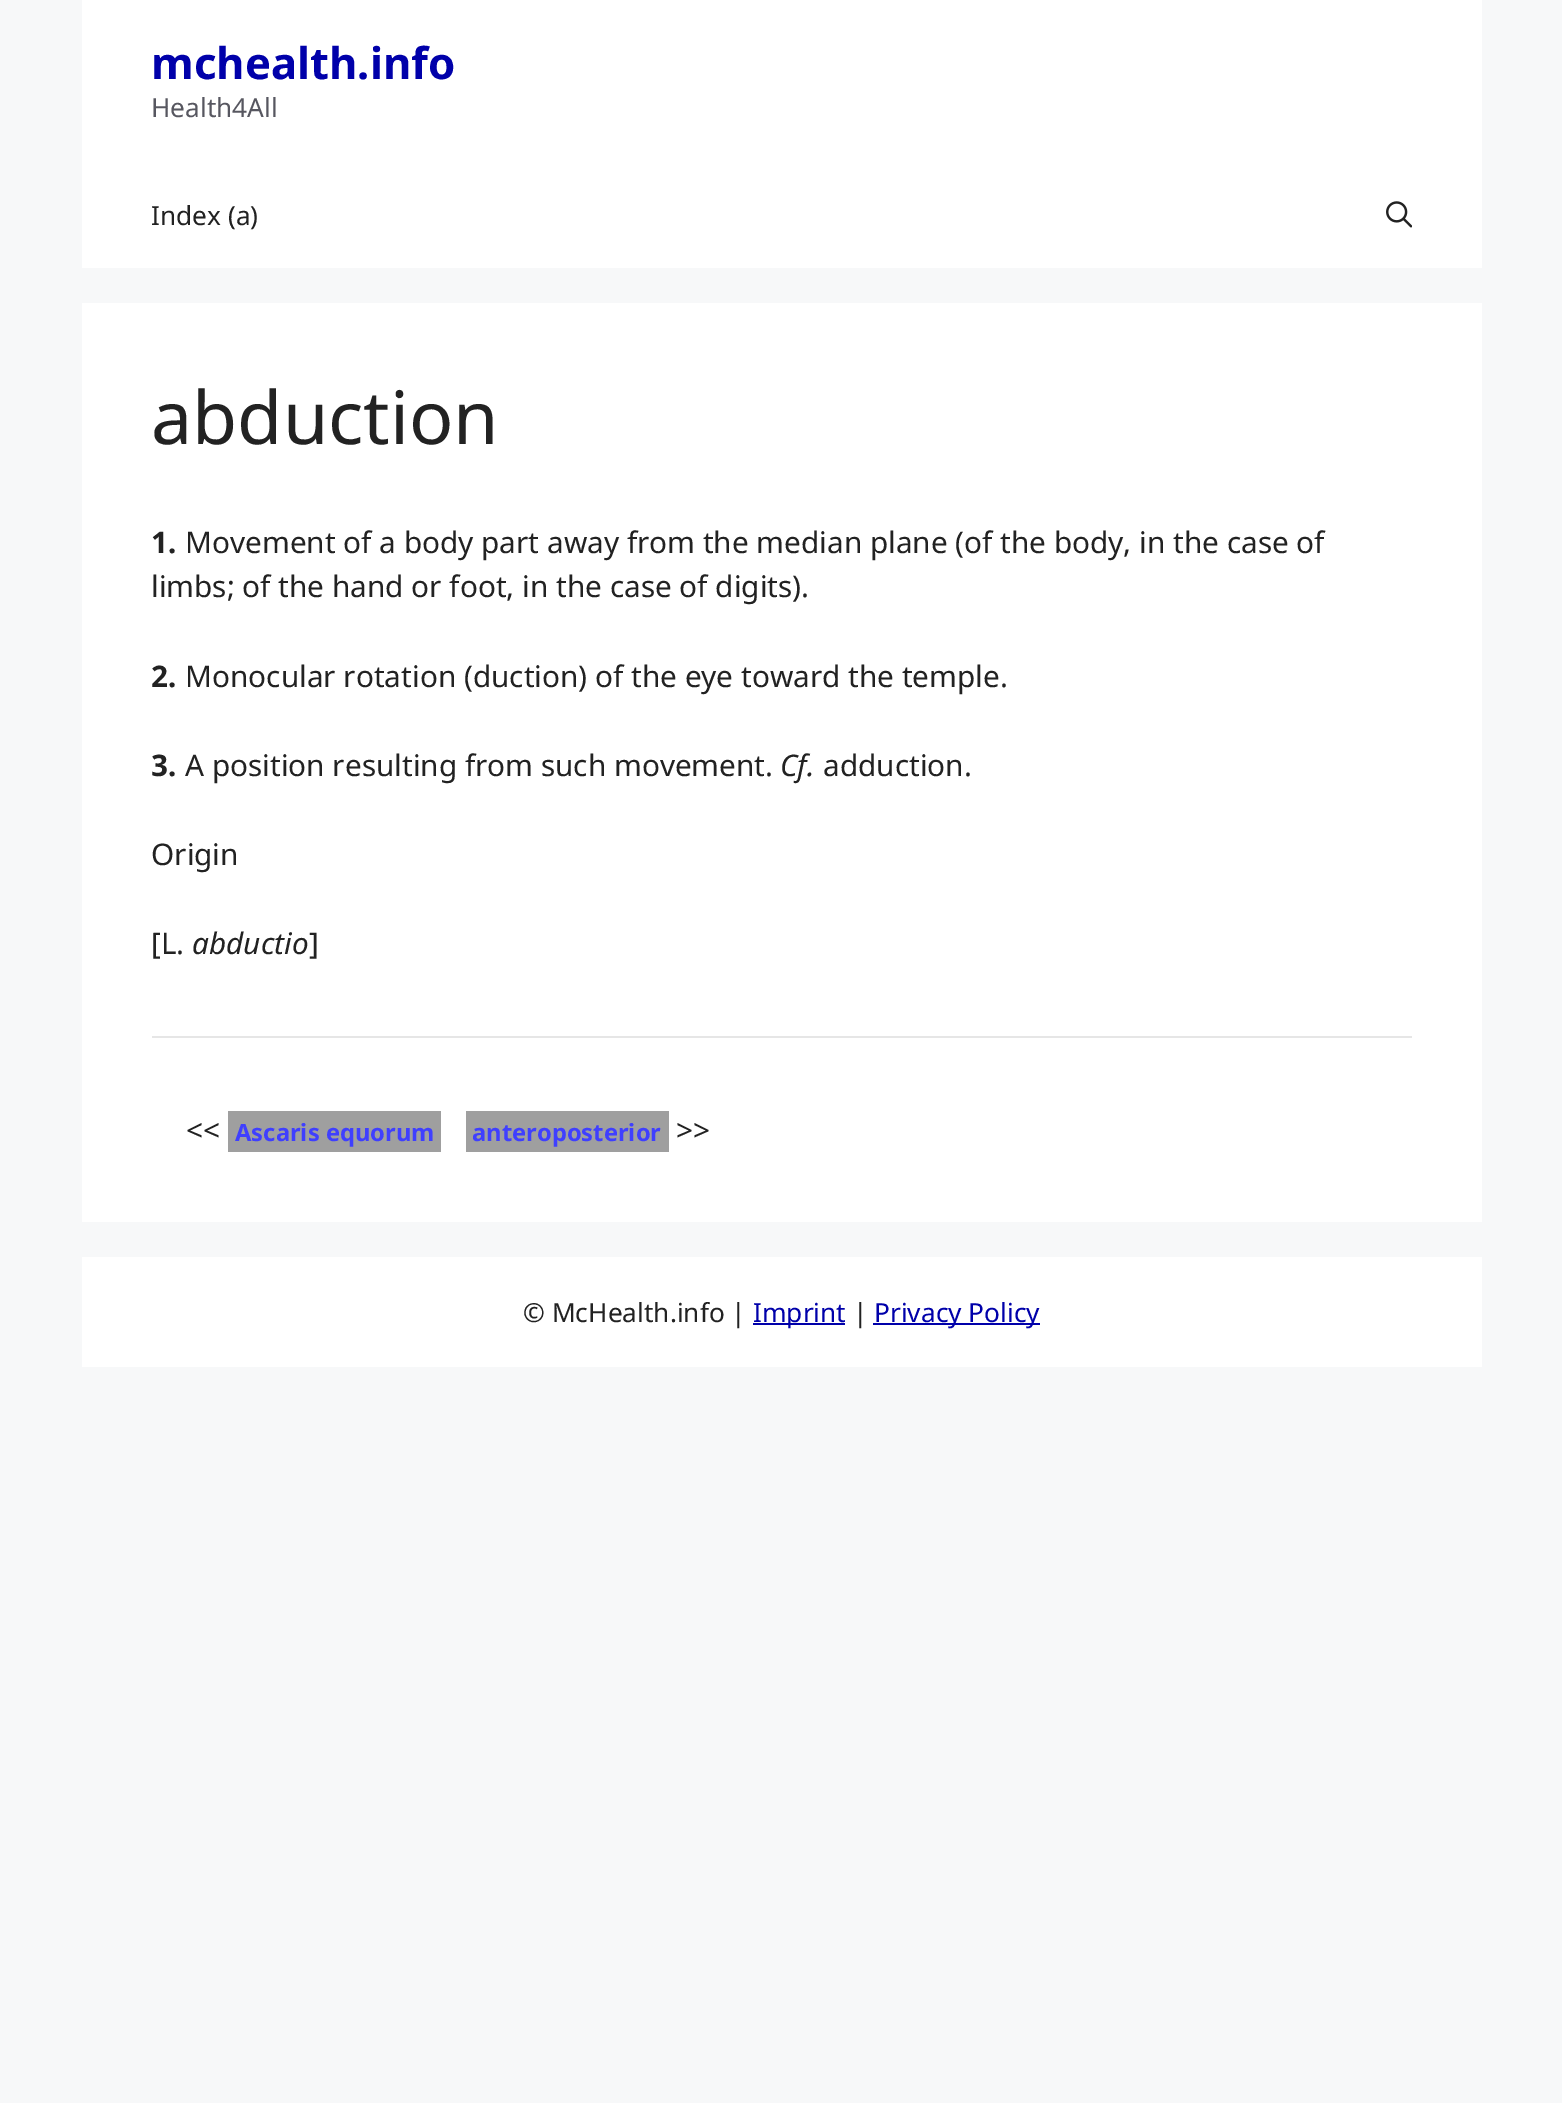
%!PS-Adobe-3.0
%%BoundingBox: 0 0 1562 2103
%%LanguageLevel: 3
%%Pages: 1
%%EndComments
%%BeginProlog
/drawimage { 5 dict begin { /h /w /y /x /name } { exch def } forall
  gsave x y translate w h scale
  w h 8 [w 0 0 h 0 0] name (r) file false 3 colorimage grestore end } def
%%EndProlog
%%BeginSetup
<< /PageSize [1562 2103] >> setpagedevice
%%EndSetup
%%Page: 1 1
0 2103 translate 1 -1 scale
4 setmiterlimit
0.969 0.973 0.976 setrgbcolor
0 0 1562 2103 rectfill
1 setgray
82 0 1400 268 rectfill
(images/1.raw) 1386 201 26 27 drawimage
82 303 1400 919 rectfill
0.902 setgray
152 1036 1260 2 rectfill
0.624 setgray
228 1111 213 41 rectfill
466 1111 203 41 rectfill
1 setgray
82 1257 1400 110 rectfill
0 0 0.667 setrgbcolor
753 1323 92 2 rectfill
873 1323 167 2 rectfill
/NotoSans-Bold [43.75 0 0 -43.75 0 0] selectfont
151 79 moveto (mchealth.info) show
/NotoSans-Regular [26.25 0 0 -26.25 0 0] selectfont
0.341 0.341 0.376 setrgbcolor
151 117 moveto (Health4All) show
0.133 setgray
151 225 moveto (Index \(a\)) show
/NotoSans-Regular [73.5 0 0 -73.5 0 0] selectfont
151 444 moveto (abduction) show
/NotoSans-Bold [29.75 0 0 -29.75 0 0] selectfont
151 553 moveto (1.) show
/NotoSans-Regular [29.75 0 0 -29.75 0 0] selectfont
185 553 moveto (Movement of a body part away from the median plane \(of the body, in the case of) show
151 597 moveto (limbs; of the hand or foot, in the case of digits\).) show
/NotoSans-Bold [29.75 0 0 -29.75 0 0] selectfont
151 687 moveto (2.) show
/NotoSans-Regular [29.75 0 0 -29.75 0 0] selectfont
185 687 moveto (Monocular rotation \(duction\) of the eye toward the temple.) show
/NotoSans-Bold [29.75 0 0 -29.75 0 0] selectfont
151 776 moveto (3.) show
/NotoSans-Regular [29.75 0 0 -29.75 0 0] selectfont
185 776 moveto (A position resulting from such movement.) show
/NotoSans-Italic [29.75 0 0 -29.75 0 0] selectfont
780 776 moveto (Cf.) show
/NotoSans-Regular [29.75 0 0 -29.75 0 0] selectfont
823 776 moveto (adduction.) show
151 865 moveto (Origin) show
151 954 moveto ([L.) show
/NotoSans-Italic [29.75 0 0 -29.75 0 0] selectfont
192 954 moveto (abductio) show
/NotoSans-Regular [29.75 0 0 -29.75 0 0] selectfont
309 954 moveto (]) show
186 1141 moveto (<<) show
/NotoSans-Bold [23.75 0 0 -23.75 0 0] selectfont
0.247 0.247 1 setrgbcolor
235 1141 moveto (Ascaris equorum) show
472 1141 moveto (anteroposterior) show
/NotoSans-Regular [29.75 0 0 -29.75 0 0] selectfont
0.133 setgray
676 1141 moveto (>>) show
/NotoSans-Regular [26.25 0 0 -26.25 0 0] selectfont
523 1322 moveto (© McHealth.info |) show
0 0 0.667 setrgbcolor
753 1322 moveto (Imprint) show
0.133 setgray
853 1322 moveto (|) show
0 0 0.667 setrgbcolor
874 1322 moveto (Privacy Policy) show
showpage
%%EOF
